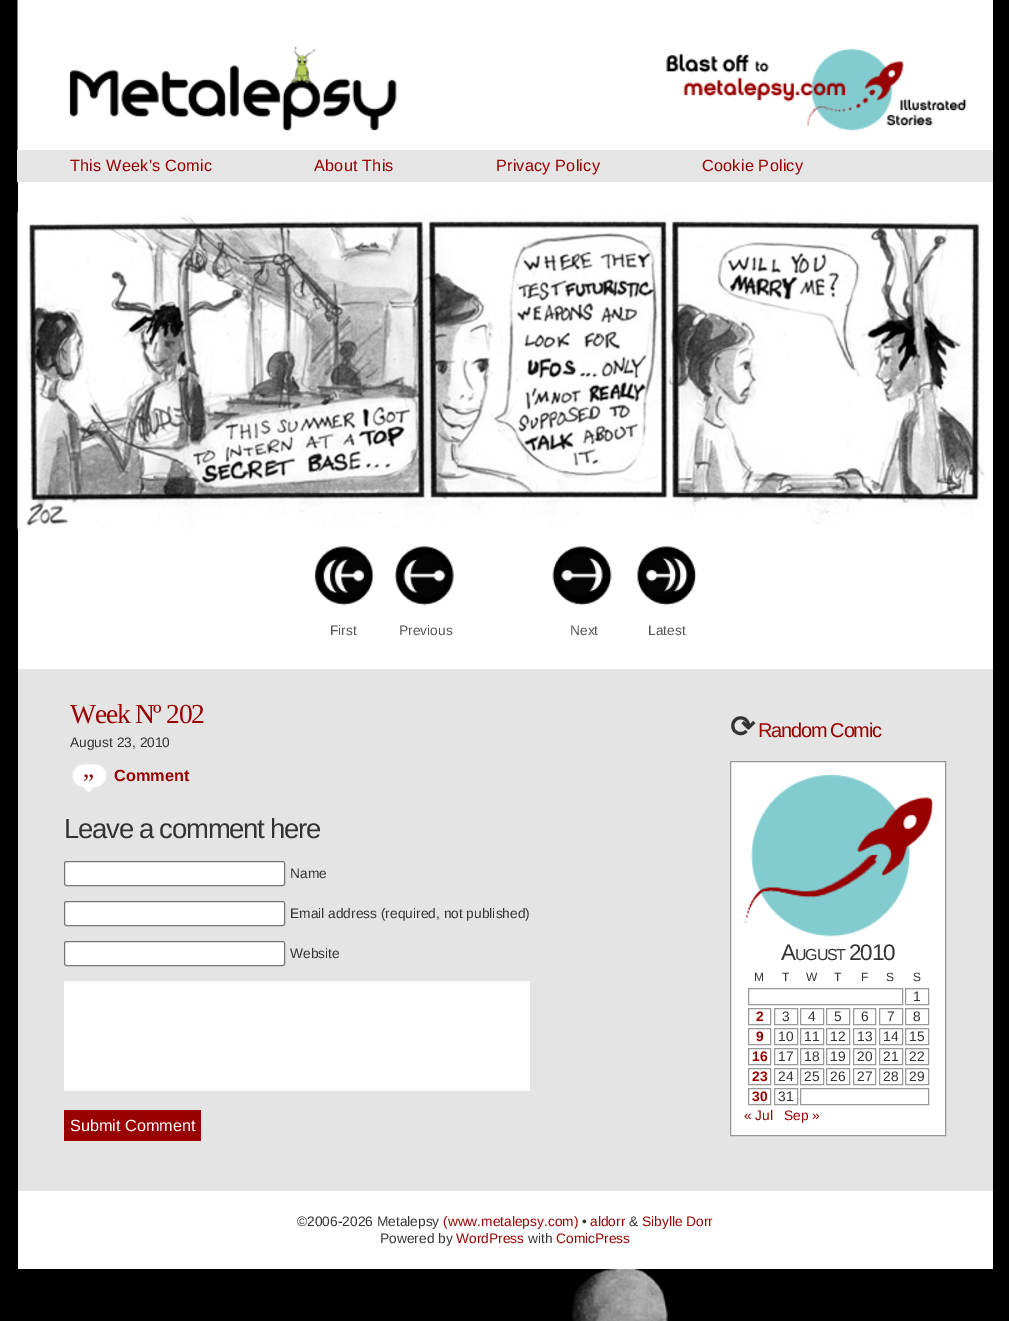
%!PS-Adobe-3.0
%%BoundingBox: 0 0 1009 1321
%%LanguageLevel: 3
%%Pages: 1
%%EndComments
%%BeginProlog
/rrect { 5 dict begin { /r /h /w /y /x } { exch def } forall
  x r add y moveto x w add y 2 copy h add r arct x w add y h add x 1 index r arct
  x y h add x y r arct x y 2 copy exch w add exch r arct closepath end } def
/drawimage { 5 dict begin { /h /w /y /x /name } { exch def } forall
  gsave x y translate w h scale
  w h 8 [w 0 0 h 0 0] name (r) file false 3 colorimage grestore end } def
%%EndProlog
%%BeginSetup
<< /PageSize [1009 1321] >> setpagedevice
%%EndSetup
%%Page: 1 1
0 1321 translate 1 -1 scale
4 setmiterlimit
1 setgray
0 0 1009 1321 rectfill
(images/1.raw) 0 0 1009 1321 drawimage
18 0 975 1269 rectfill
(images/2.raw) 17 0 380 150 drawimage
(images/3.raw) 666 48 301 83 drawimage
0.898 setgray
17 150 976 32 rectfill
(images/4.raw) 17 212 968 317 drawimage
(images/5.raw) 314 546 60 60 drawimage
(images/6.raw) 394 546 60 60 drawimage
(images/7.raw) 552 546 60 60 drawimage
(images/8.raw) 637 546 60 60 drawimage
0.894 setgray
18 669 975 522 rectfill
(images/9.raw) 72 764 35 29 drawimage
1 setgray
64.5 861.5 220 24 2 rrect gsave fill grestore
0.463 setgray
stroke
1 setgray
64.5 901.5 220 24 2 rrect gsave fill grestore
0.463 setgray
stroke
1 setgray
64.5 941.5 220 24 2 rrect gsave fill grestore
0.463 setgray
stroke
1 setgray
64 981 466 110 rectfill
0.6 0 0 setrgbcolor
64 1110 137 31 rectfill
1 setgray
newpath 730.5 761.5 moveto 945.5 761.5 lineto 945.5 1135.5 lineto 730.5 1135.5 lineto closepath gsave fill grestore
0.6 setgray
stroke
(images/10.raw) 745 775 188 162 drawimage
748.5 988.5 154 16 rectstroke
905.5 988.5 23 16 rectstroke
748.5 1008.5 22 16 rectstroke
774.5 1008.5 23 16 rectstroke
800.5 1008.5 23 16 rectstroke
826.5 1008.5 23 16 rectstroke
853.5 1008.5 22 16 rectstroke
879.5 1008.5 23 16 rectstroke
905.5 1008.5 23 16 rectstroke
748.5 1028.5 22 16 rectstroke
774.5 1028.5 23 16 rectstroke
800.5 1028.5 23 16 rectstroke
826.5 1028.5 23 16 rectstroke
853.5 1028.5 22 16 rectstroke
879.5 1028.5 23 16 rectstroke
905.5 1028.5 23 16 rectstroke
748.5 1048.5 22 16 rectstroke
774.5 1048.5 23 16 rectstroke
800.5 1048.5 23 16 rectstroke
826.5 1048.5 23 16 rectstroke
853.5 1048.5 22 16 rectstroke
879.5 1048.5 23 16 rectstroke
905.5 1048.5 23 16 rectstroke
748.5 1068.5 22 16 rectstroke
774.5 1068.5 23 16 rectstroke
800.5 1068.5 23 16 rectstroke
826.5 1068.5 23 16 rectstroke
853.5 1068.5 22 16 rectstroke
879.5 1068.5 23 16 rectstroke
905.5 1068.5 23 16 rectstroke
748.5 1088.5 22 16 rectstroke
774.5 1088.5 23 16 rectstroke
800.5 1088.5 128 16 rectstroke
/LiberationSans-Regular [16.25 0 0 -16.25 0 0] selectfont
0.6 0 0 setrgbcolor
70 171 moveto 0.2 0 (This Week's Comic) ashow
314 171 moveto 0.2 0 (About This) ashow
496 171 moveto 0.2 0 (Privacy Policy) ashow
702 171 moveto 0.2 0 (Cookie Policy) ashow
/LiberationSans-Regular [13.75 0 0 -13.75 0 0] selectfont
0.333 setgray
330 635 moveto (First) show
399 635 moveto (Previous) show
570 635 moveto (Next) show
648 635 moveto (Latest) show
/LiberationSerif-Regular [27.5 0 0 -27.5 0 0] selectfont
0.6 0 0 setrgbcolor
70 723 moveto -1.25 0 (Week Nº 202) ashow
/LiberationSans-Regular [13.75 0 0 -13.75 0 0] selectfont
0.2 setgray
70 747 moveto (August 23, 2010) show
/LiberationSerif-Regular [25 0 0 -25 0 0] selectfont
0.6 0 0 setrgbcolor
83 791 moveto (”) show
/LiberationSans-Bold [16.25 0 0 -16.25 0 0] selectfont
114 781 moveto (Comment) show
/LiberationSans-Regular [27.5 0 0 -27.5 0 0] selectfont
0.2 setgray
64 838 moveto -1.25 0 (Leave a comment here) ashow
/LiberationSans-Regular [13.75 0 0 -13.75 0 0] selectfont
290 878 moveto (Name) show
290 918 moveto (Email address \(required, not published\)) show
290 958 moveto (Website) show
/LiberationSans-Regular [16.25 0 0 -16.25 0 0] selectfont
1 setgray
70 1131 moveto (Submit Comment) show
/DejaVuSans-Bold [30 0 0 -30 0 0] selectfont
0.2 setgray
730 737 moveto -1.25 0 (⟳) ashow
/LiberationSans-Regular [20 0 0 -20 0 0] selectfont
0.6 0 0 setrgbcolor
758 737 moveto -1.25 0 (Random Comic) ashow
/LiberationSans-Regular [22.5 0 0 -22.5 0 0] selectfont
0.2 setgray
781 960 moveto -1.25 0 (A) ashow
/LiberationSans-Regular [16 0 0 -16 0 0] selectfont
795 960 moveto -1.25 0 (UGUST) ashow
/LiberationSans-Regular [22.5 0 0 -22.5 0 0] selectfont
849 960 moveto -1.25 0 (2010) ashow
/LiberationSans-Regular [12 0 0 -12 0 0] selectfont
754 981 moveto (M) show
782 981 moveto (T) show
806 981 moveto (W) show
834 981 moveto (T) show
861 981 moveto (F) show
886 981 moveto (S) show
913 981 moveto (S) show
/LiberationSans-Regular [13.75 0 0 -13.75 0 0] selectfont
913 1001 moveto (1) show
/LiberationSans-Bold [13.75 0 0 -13.75 0 0] selectfont
0.6 0 0 setrgbcolor
756 1021 moveto (2) show
/LiberationSans-Regular [13.75 0 0 -13.75 0 0] selectfont
0.2 setgray
782 1021 moveto (3) show
808 1021 moveto (4) show
834 1021 moveto (5) show
861 1021 moveto (6) show
887 1021 moveto (7) show
913 1021 moveto (8) show
/LiberationSans-Bold [13.75 0 0 -13.75 0 0] selectfont
0.6 0 0 setrgbcolor
756 1041 moveto (9) show
/LiberationSans-Regular [13.75 0 0 -13.75 0 0] selectfont
0.2 setgray
778 1041 moveto (10) show
804 1041 moveto (11) show
830 1041 moveto (12) show
857 1041 moveto (13) show
883 1041 moveto (14) show
909 1041 moveto (15) show
/LiberationSans-Bold [13.75 0 0 -13.75 0 0] selectfont
0.6 0 0 setrgbcolor
752 1061 moveto (16) show
/LiberationSans-Regular [13.75 0 0 -13.75 0 0] selectfont
0.2 setgray
778 1061 moveto (17) show
804 1061 moveto (18) show
830 1061 moveto (19) show
857 1061 moveto (20) show
883 1061 moveto (21) show
909 1061 moveto (22) show
/LiberationSans-Bold [13.75 0 0 -13.75 0 0] selectfont
0.6 0 0 setrgbcolor
752 1081 moveto (23) show
/LiberationSans-Regular [13.75 0 0 -13.75 0 0] selectfont
0.2 setgray
778 1081 moveto (24) show
804 1081 moveto (25) show
830 1081 moveto (26) show
857 1081 moveto (27) show
883 1081 moveto (28) show
909 1081 moveto (29) show
/LiberationSans-Bold [13.75 0 0 -13.75 0 0] selectfont
0.6 0 0 setrgbcolor
752 1101 moveto (30) show
/LiberationSans-Regular [13.75 0 0 -13.75 0 0] selectfont
0.2 setgray
778 1101 moveto (31) show
0.6 0 0 setrgbcolor
744 1120 moveto (« Jul) show
784 1120 moveto (Sep ») show
0.2 setgray
297 1226 moveto (©2006-2026 Metalepsy) show
0.6 0 0 setrgbcolor
443 1226 moveto (\(www.metalepsy.com\)) show
0.2 setgray
582 1226 moveto (•) show
0.6 0 0 setrgbcolor
590 1226 moveto (aldorr) show
0.2 setgray
629 1226 moveto (&) show
0.6 0 0 setrgbcolor
642 1226 moveto (Sibylle Dorr) show
0.2 setgray
380 1243 moveto (Powered by) show
0.6 0 0 setrgbcolor
456 1243 moveto (WordPress) show
0.2 setgray
528 1243 moveto (with) show
0.6 0 0 setrgbcolor
556 1243 moveto (ComicPress) show
showpage
%%EOF
